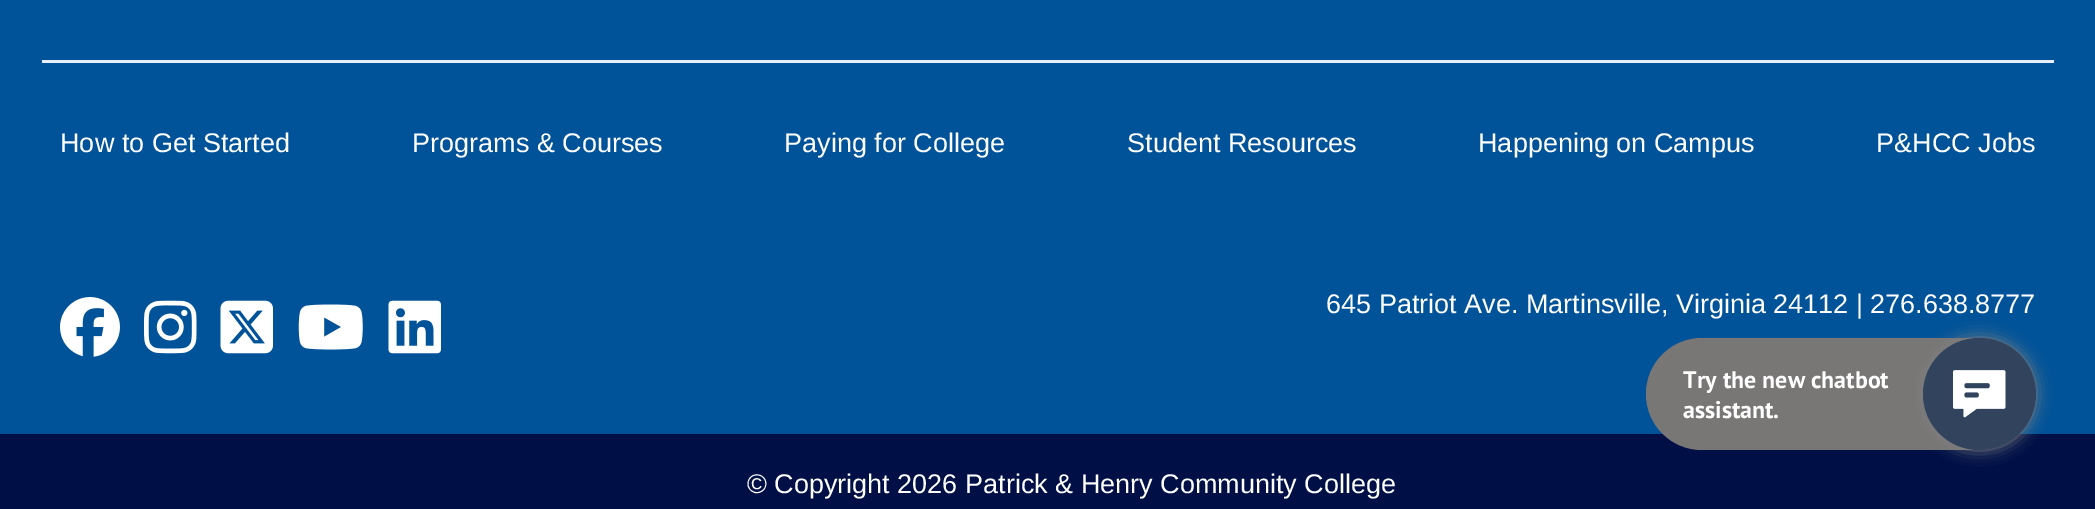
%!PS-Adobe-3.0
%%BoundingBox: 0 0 2095 509
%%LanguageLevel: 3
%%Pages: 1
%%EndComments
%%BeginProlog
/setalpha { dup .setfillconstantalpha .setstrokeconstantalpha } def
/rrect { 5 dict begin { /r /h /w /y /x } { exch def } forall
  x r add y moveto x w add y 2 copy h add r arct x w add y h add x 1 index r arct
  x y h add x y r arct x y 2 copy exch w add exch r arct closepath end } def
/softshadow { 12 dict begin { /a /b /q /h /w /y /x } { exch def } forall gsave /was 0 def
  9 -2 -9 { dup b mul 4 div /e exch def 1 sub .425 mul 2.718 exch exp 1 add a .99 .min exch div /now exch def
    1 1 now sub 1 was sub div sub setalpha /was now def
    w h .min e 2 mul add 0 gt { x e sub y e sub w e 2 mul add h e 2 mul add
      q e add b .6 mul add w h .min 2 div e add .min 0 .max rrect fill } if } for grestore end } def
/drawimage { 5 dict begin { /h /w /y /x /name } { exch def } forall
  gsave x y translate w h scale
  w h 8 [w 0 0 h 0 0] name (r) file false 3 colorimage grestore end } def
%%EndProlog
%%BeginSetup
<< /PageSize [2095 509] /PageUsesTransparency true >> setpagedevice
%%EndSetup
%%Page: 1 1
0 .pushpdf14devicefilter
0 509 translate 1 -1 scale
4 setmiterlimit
0.004 0.325 0.6 setrgbcolor
0 0 2095 509 rectfill
0.898 0.941 0.98 setrgbcolor
42 60 2012 3 rectfill
(images/1.raw) 60 297 60 60 drawimage
(images/2.raw) 144 300 53 54 drawimage
(images/3.raw) 220 300 53 54 drawimage
(images/4.raw) 298 304 65 46 drawimage
(images/5.raw) 388 300 53 54 drawimage
0 0.063 0.275 setrgbcolor
0 434 2095 75 rectfill
0.475 0.463 0.463 setrgbcolor
1646 338 390 112 56 rrect fill
0.502 setgray
1923 338 113 112 56 7.5 1 softshadow
0.192 0.263 0.365 setrgbcolor
1923 338 113 112 56 rrect fill
(images/6.raw) 1953 370 53 48 drawimage
/LiberationSans-Regular [27 0 0 -27 0 0] selectfont
1 setgray
60 152 moveto (How to Get Started) show
412 152 moveto (Programs & Courses) show
784 152 moveto (Paying for College) show
1127 152 moveto (Student Resources) show
1478 152 moveto (Happening on Campus) show
1876 152 moveto (P&HCC Jobs) show
1326 313 moveto (645 Patriot Ave. Martinsville, Virginia 24112 | 276.638.8777) show
747 493 moveto (© Copyright 2026 Patrick & Henry Community College) show
/PTSans-Bold [24 0 0 -24 0 0] selectfont
1683 388 moveto (Try the new chatbot) show
1683 418 moveto (assistant.) show
.poppdf14devicefilter showpage
%%EOF
